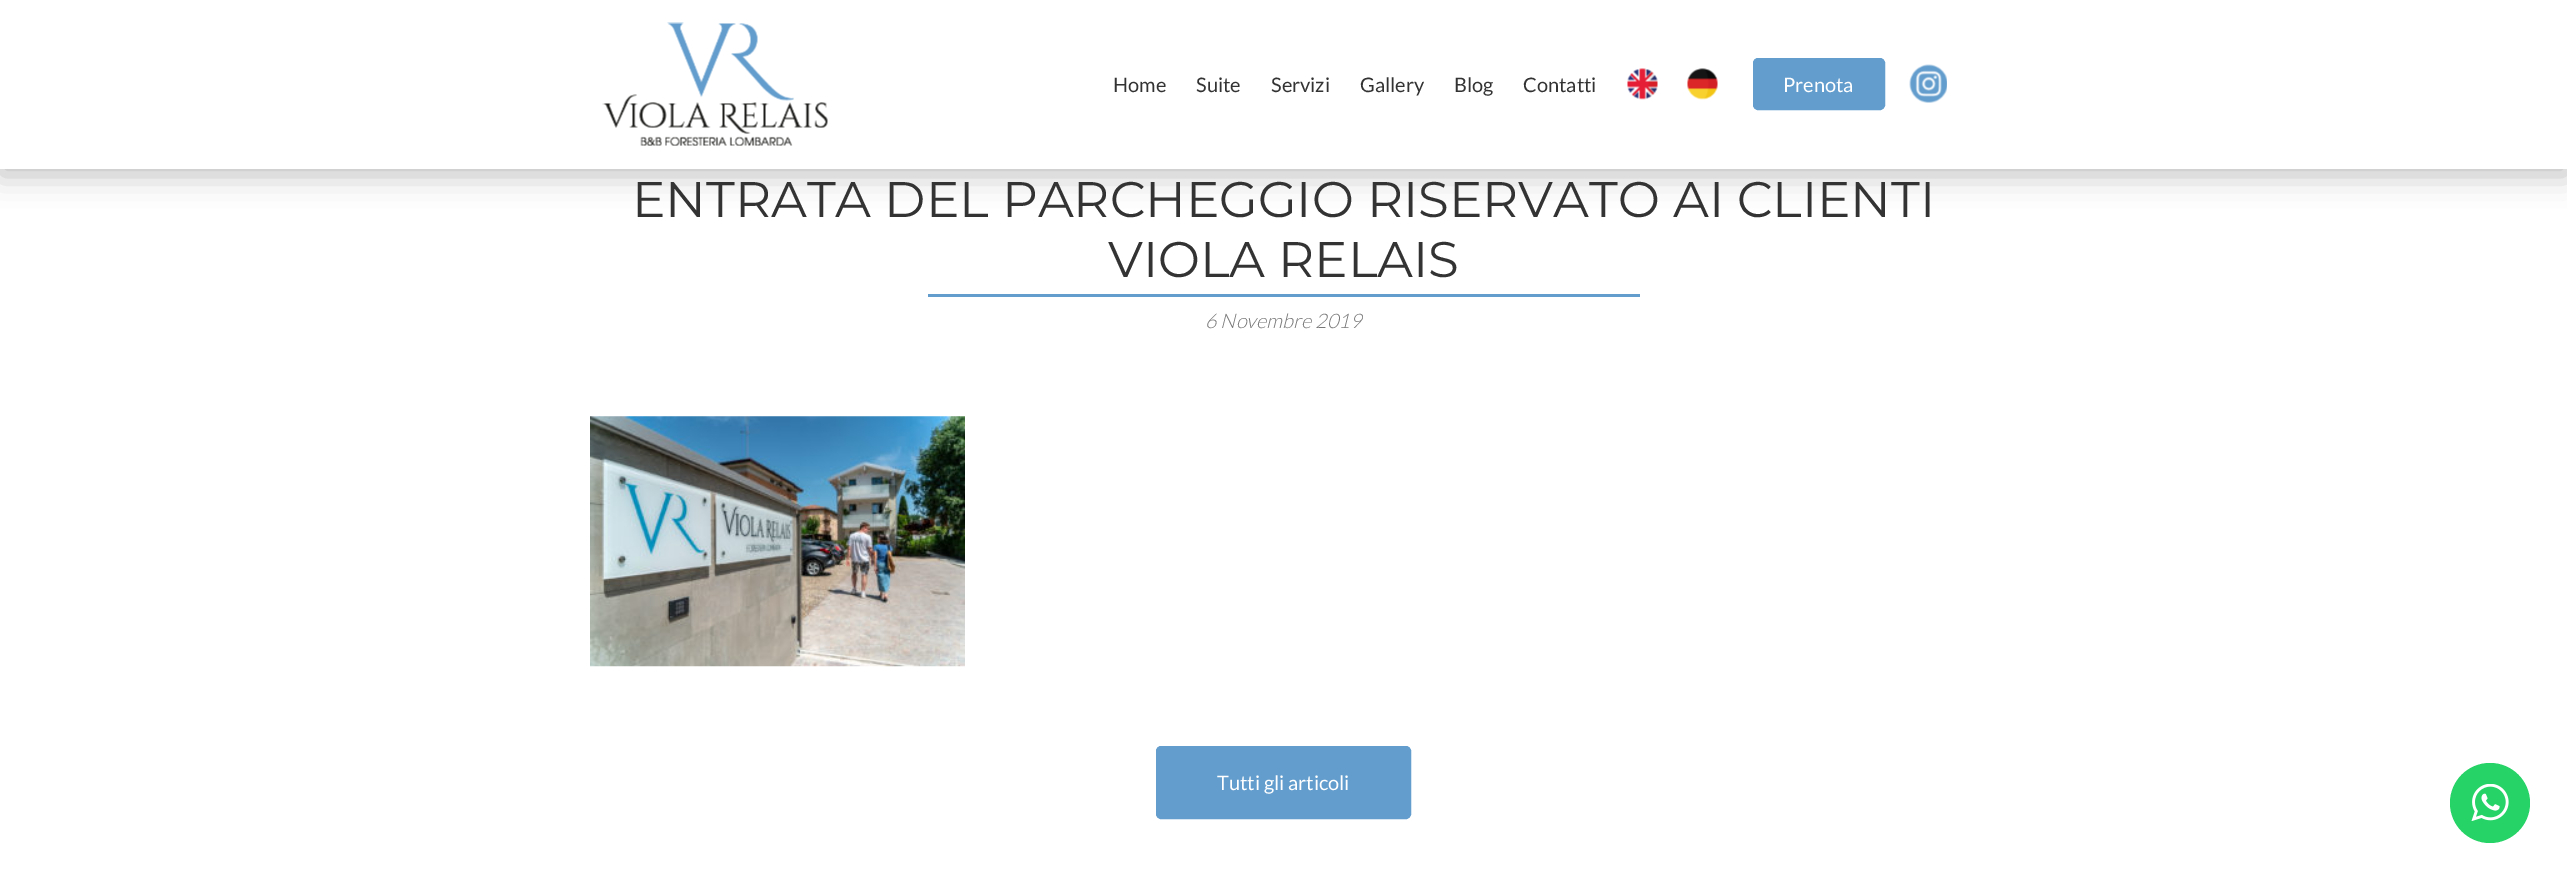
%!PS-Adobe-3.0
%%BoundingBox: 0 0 2567 880
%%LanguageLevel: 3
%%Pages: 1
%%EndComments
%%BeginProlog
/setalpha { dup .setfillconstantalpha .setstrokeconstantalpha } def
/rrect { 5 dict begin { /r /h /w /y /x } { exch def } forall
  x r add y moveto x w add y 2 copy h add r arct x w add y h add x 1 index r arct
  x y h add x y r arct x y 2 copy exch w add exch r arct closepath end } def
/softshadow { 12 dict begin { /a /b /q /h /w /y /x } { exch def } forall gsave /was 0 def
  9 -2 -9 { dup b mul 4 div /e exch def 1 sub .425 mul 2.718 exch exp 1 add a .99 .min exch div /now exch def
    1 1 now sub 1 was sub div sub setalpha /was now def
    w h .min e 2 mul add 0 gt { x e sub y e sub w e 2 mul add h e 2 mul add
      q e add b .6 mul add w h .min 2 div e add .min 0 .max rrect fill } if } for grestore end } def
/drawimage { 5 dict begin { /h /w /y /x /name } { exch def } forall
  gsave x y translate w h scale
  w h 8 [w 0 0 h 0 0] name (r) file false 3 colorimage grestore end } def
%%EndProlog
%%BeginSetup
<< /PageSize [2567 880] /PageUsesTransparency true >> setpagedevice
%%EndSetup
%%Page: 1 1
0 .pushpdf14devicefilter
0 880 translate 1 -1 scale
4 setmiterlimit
1 setgray
0 0 2567 880 rectfill
0 setgray
0 6 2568 169 0 15 0.25 softshadow
1 setgray
0 0 2567 169 rectfill
(images/1.raw) 602 22 226 124 drawimage
(images/2.raw) 1627 68 31 32 drawimage
(images/3.raw) 1687 68 31 32 drawimage
0.388 0.616 0.804 setrgbcolor
1753.5 58.5 131 51 4.5 rrect gsave fill grestore
stroke
(images/4.raw) 1909 64 38 39 drawimage
928 294 712 3 rectfill
(images/5.raw) 590 416 375 251 drawimage
1156.5 746.5 254 72 4.5 rrect gsave fill grestore
stroke
0.145 0.827 0.4 setrgbcolor
newpath 2490 803 40 0 360 arc closepath fill
(images/6.raw) 2471 784 38 37 drawimage
/Lato-Regular [20 0 0 -20 0 0] selectfont
0.2 setgray
1113 92 moveto (Home) show
1196 92 moveto (Suite) show
1271 92 moveto (Servizi) show
1360 92 moveto (Gallery) show
1454 92 moveto (Blog) show
1523 92 moveto (Contatti) show
1 setgray
1783 92 moveto (Prenota) show
/Montserrat-Thin [50 0 0 -50 0 0] selectfont
0.2 setgray
632 217 moveto (ENTRATA DEL PARCHEGGIO RISERVATO AI CLIENTI) show
1108 277 moveto (VIOLA RELAIS) show
/Lato-LightItalic [20 0 0 -20 0 0] selectfont
0.467 setgray
1205 328 moveto (6 Novembre 2019) show
/Lato-Regular [20 0 0 -20 0 0] selectfont
1 setgray
1217 790 moveto (Tutti gli articoli) show
.poppdf14devicefilter showpage
%%EOF
